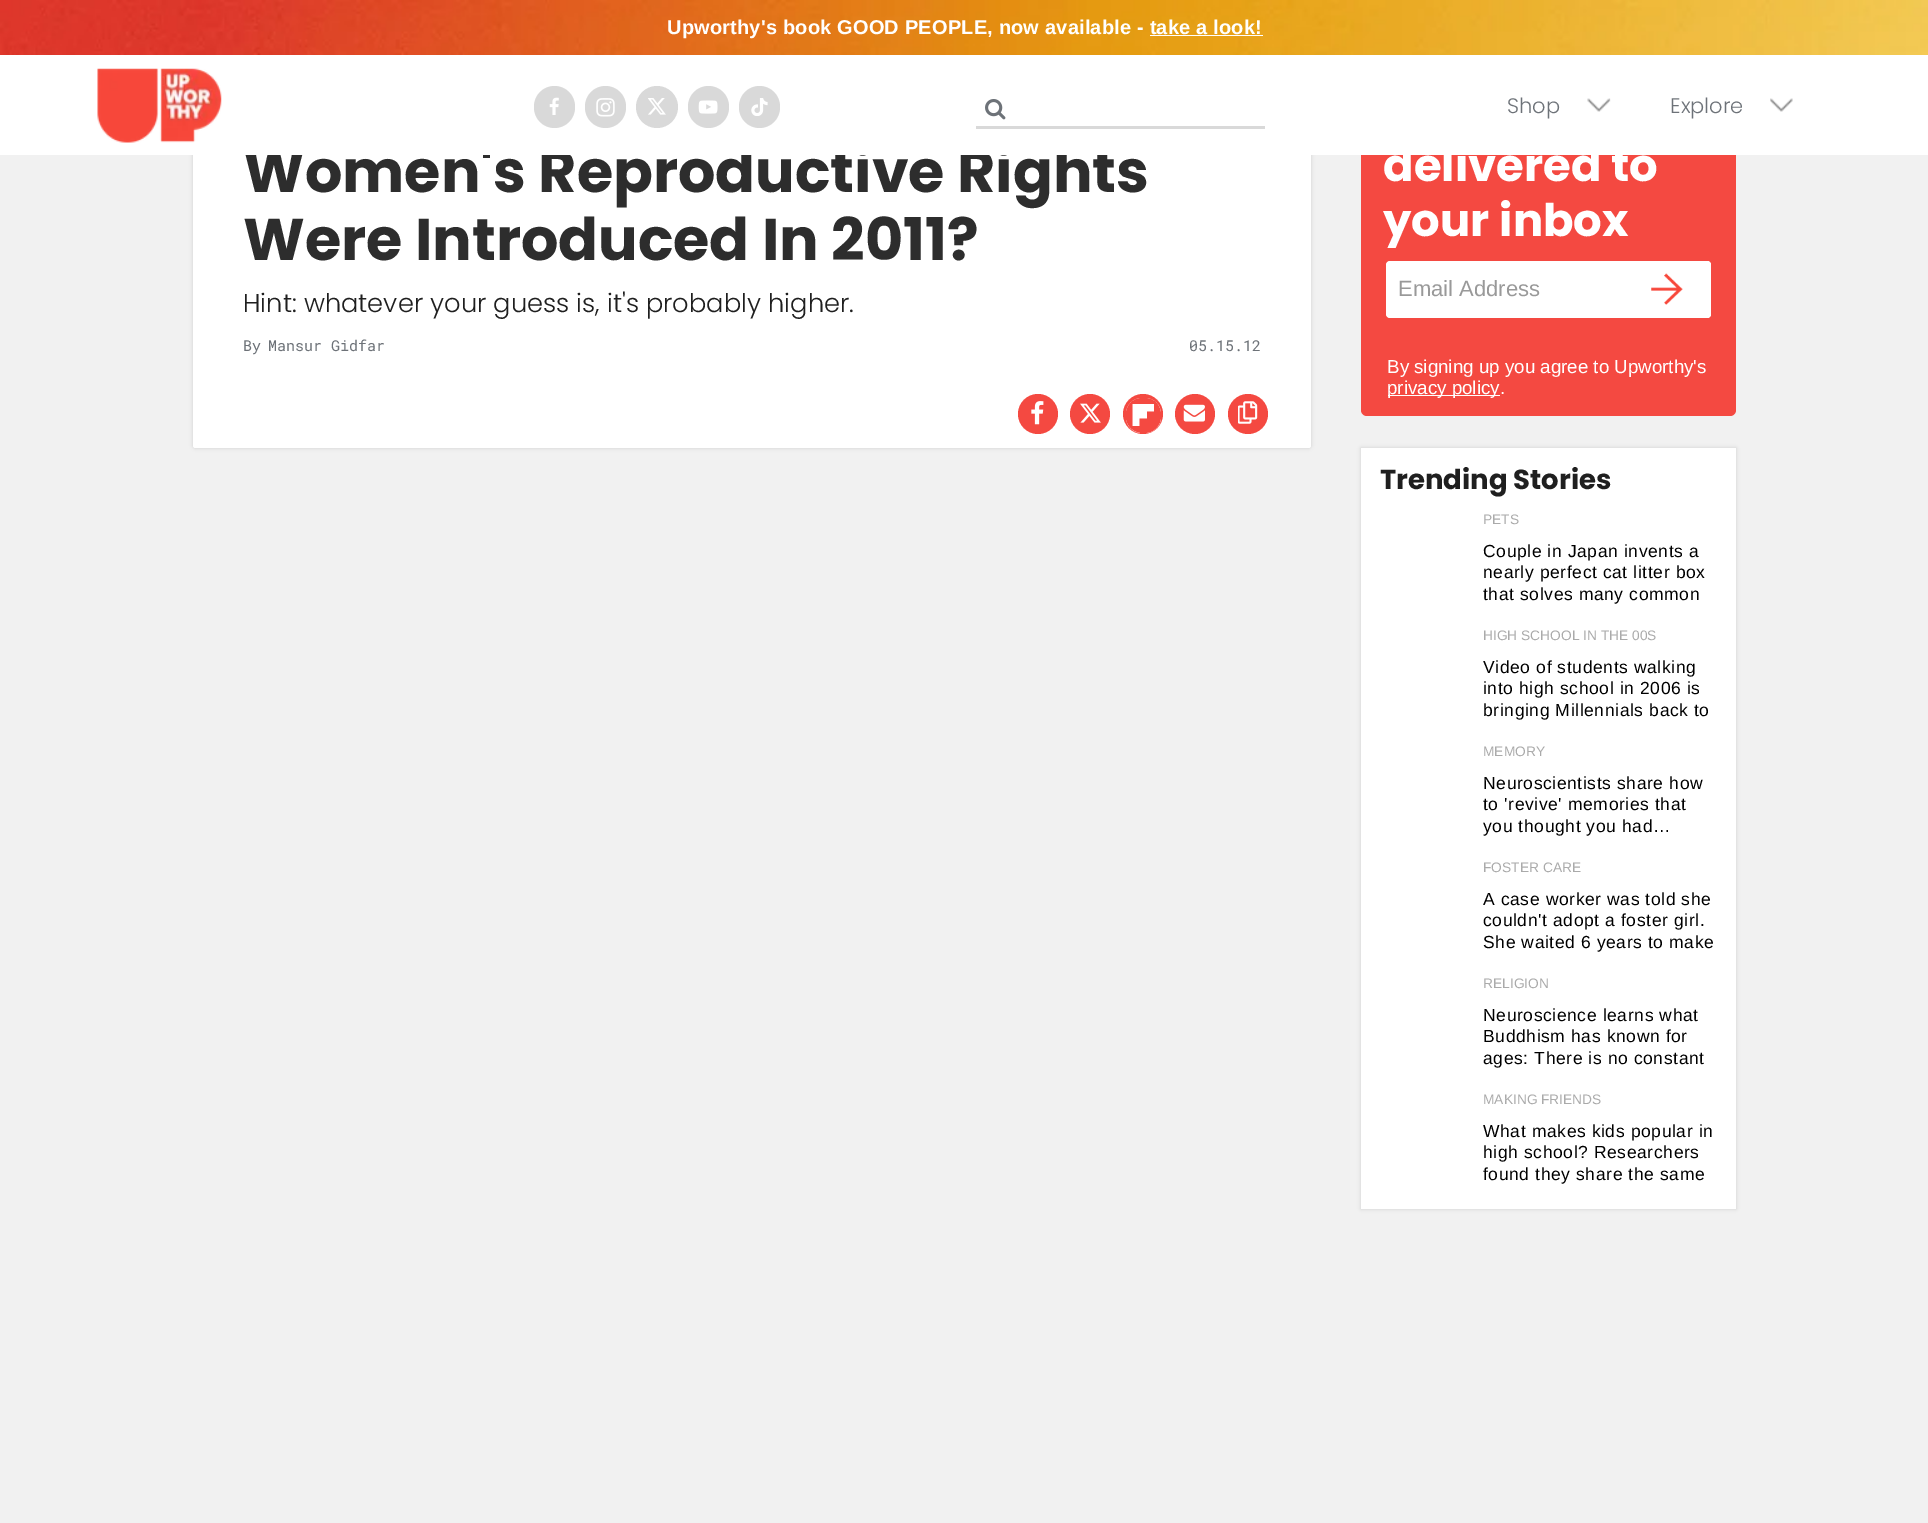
%!PS-Adobe-3.0
%%BoundingBox: 0 0 1928 1523
%%LanguageLevel: 3
%%Pages: 1
%%EndComments
%%BeginProlog
/setalpha { dup .setfillconstantalpha .setstrokeconstantalpha } def
/rrect { 5 dict begin { /r /h /w /y /x } { exch def } forall
  x r add y moveto x w add y 2 copy h add r arct x w add y h add x 1 index r arct
  x y h add x y r arct x y 2 copy exch w add exch r arct closepath end } def
/softshadow { 12 dict begin { /a /b /q /h /w /y /x } { exch def } forall gsave /was 0 def
  9 -2 -9 { dup b mul 4 div /e exch def 1 sub .425 mul 2.718 exch exp 1 add a .99 .min exch div /now exch def
    1 1 now sub 1 was sub div sub setalpha /was now def
    w h .min e 2 mul add 0 gt { x e sub y e sub w e 2 mul add h e 2 mul add
      q e add b .6 mul add w h .min 2 div e add .min 0 .max rrect fill } if } for grestore end } def
/drawimage { 5 dict begin { /h /w /y /x /name } { exch def } forall
  gsave x y translate w h scale
  w h 8 [w 0 0 h 0 0] name (r) file false 3 colorimage grestore end } def
%%EndProlog
%%BeginSetup
<< /PageSize [1928 1523] /PageUsesTransparency true >> setpagedevice
%%EndSetup
%%Page: 1 1
0 .pushpdf14devicefilter
0 1523 translate 1 -1 scale
4 setmiterlimit
0.945 setgray
0 0 1928 1523 rectfill
0.8 setgray
193 -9 1118 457 2.5 2 1 softshadow
1 setgray
193 -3 1118 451 2.5 rrect fill
0.957 0.286 0.255 setrgbcolor
1361 9 375 407 6 rrect fill
(images/1.raw) 0 0 1928 55 drawimage
1 setgray
1150 35 113 1 rectfill
0.957 0.286 0.255 setrgbcolor
newpath 1038 414 20 0 360 arc closepath fill
(images/11.raw) 1031 401 13 24 drawimage
newpath 1090 414 20 0 360 arc closepath fill
(images/12.raw) 1080 403 21 20 drawimage
newpath 1143 414 20 0 360 arc closepath fill
1 setgray
1126 398 35 35 16 rrect fill
0.957 0.286 0.255 setrgbcolor
newpath 1142 398 moveto 1121.5 398 1119 431 1142 433 curveto 1167 435 1167 398 1145 398 curveto closepath 1154 411.5 moveto 1154 404 lineto 1132.5 404 lineto 1132.5 426 lineto 1139.5 426 lineto 1139.5 418.5 lineto 1147 418.5 lineto 1147 411.5 lineto closepath eofill
newpath 1195 414 20 0 360 arc closepath fill
(images/13.raw) 1183 404 22 18 drawimage
newpath 1248 414 20 0 360 arc closepath fill
(images/14.raw) 1238 401 20 23 drawimage
1 setgray
1386 261 325 57 4 rrect fill
1624 261 87 57 4 rrect fill
(images/15.raw) 1651 273 32 32 drawimage
1388 395 112 1 rectfill
0.8 setgray
1361 448 375 761 0 2 1 softshadow
1 setgray
1361 448 375 761 rectfill
/LiberationSans-Bold [20 0 0 -20 0 0] selectfont
667 34 moveto 0.2 0 (Upworthy's book GOOD PEOPLE, now available - take a look!) ashow
/Poppins-Bold [58.75 0 0 -58.75 0 0] selectfont
0.176 setgray
243 192 moveto (Women's Reproductive Rights) show
1 setgray
0 55 1928 100 rectfill
(images/10.raw) 1770 98 23 14 drawimage
/Poppins-Light [21 0 0 -21 0 0] selectfont
0.427 0.447 0.471 setrgbcolor
1670 113 moveto (Explore) show
(images/9.raw) 1587 98 24 14 drawimage
1507 113 moveto (Shop) show
(images/8.raw) 985 99 21 21 drawimage
0.851 setgray
976 126 289 3 rectfill
739 86 41 42 20.5 rrect fill
(images/7.raw) 751 98 17 18 drawimage
688 86 41 42 20.5 rrect fill
(images/6.raw) 698 100 20 14 drawimage
newpath 657 107 21 0 360 arc closepath fill
(images/5.raw) 648 98 18 17 drawimage
585 86 41 42 20.5 rrect fill
(images/4.raw) 596 98 19 19 drawimage
534 86 41 42 20.5 rrect fill
(images/3.raw) 549 97 10 18 drawimage
(images/2.raw) 97 68 125 75 drawimage
/Poppins-Bold [58.75 0 0 -58.75 0 0] selectfont
0.176 setgray
243 260 moveto (Were Introduced In 2011?) show
/Poppins-Light [25.75 0 0 -25.75 0 0] selectfont
0.122 setgray
243 312 moveto (Hint: whatever your guess is, it's probably higher.) show
/RobotoMono-Regular [15 0 0 -15 0 0] selectfont
0.427 0.447 0.471 setrgbcolor
243 351 moveto (By) show
268 351 moveto (Mansur Gidfar) show
1189 351 moveto (05.15.12) show
/Poppins-Bold [45 0 0 -45 0 0] selectfont
1 setgray
1383 181 moveto (delivered to) show
1383 236 moveto (your inbox) show
/LiberationSans-Regular [22 0 0 -22 0 0] selectfont
0.6 setgray
1398 296 moveto (Email Address) show
/LiberationSans-Regular [18.75 0 0 -18.75 0 0] selectfont
1 setgray
1387 373 moveto (By signing up you agree to Upworthy's) show
1387 394 moveto (privacy policy.) show
/Poppins-Bold [27.5 0 0 -27.5 0 0] selectfont
0.122 setgray
1380 489 moveto (Trending Stories) show
/LiberationSans-Regular [13.75 0 0 -13.75 0 0] selectfont
0.667 setgray
1483 524 moveto (PETS) show
/LiberationSans-Regular [17.5 0 0 -17.5 0 0] selectfont
0 setgray
1483 557 moveto 0.6 0 (Couple in Japan invents a) ashow
1483 578 moveto 0.6 0 (nearly perfect cat litter box) ashow
1483 600 moveto 0.6 0 (that solves many common) ashow
/LiberationSans-Regular [13.75 0 0 -13.75 0 0] selectfont
0.667 setgray
1483 640 moveto (HIGH SCHOOL IN THE 00S) show
/LiberationSans-Regular [17.5 0 0 -17.5 0 0] selectfont
0 setgray
1483 673 moveto 0.6 0 (Video of students walking) ashow
1483 694 moveto 0.6 0 (into high school in 2006 is) ashow
1483 716 moveto 0.6 0 (bringing Millennials back to) ashow
/LiberationSans-Regular [13.75 0 0 -13.75 0 0] selectfont
0.667 setgray
1483 756 moveto (MEMORY) show
/LiberationSans-Regular [17.5 0 0 -17.5 0 0] selectfont
0 setgray
1483 789 moveto 0.6 0 (Neuroscientists share how) ashow
1483 810 moveto 0.6 0 (to 'revive' memories that) ashow
1483 832 moveto 0.6 0 (you thought you had…) ashow
/LiberationSans-Regular [13.75 0 0 -13.75 0 0] selectfont
0.667 setgray
1483 872 moveto (FOSTER CARE) show
/LiberationSans-Regular [17.5 0 0 -17.5 0 0] selectfont
0 setgray
1483 905 moveto 0.6 0 (A case worker was told she) ashow
1483 926 moveto 0.6 0 (couldn't adopt a foster girl.) ashow
1483 948 moveto 0.6 0 (She waited 6 years to make) ashow
/LiberationSans-Regular [13.75 0 0 -13.75 0 0] selectfont
0.667 setgray
1483 988 moveto (RELIGION) show
/LiberationSans-Regular [17.5 0 0 -17.5 0 0] selectfont
0 setgray
1483 1021 moveto 0.6 0 (Neuroscience learns what) ashow
1483 1042 moveto 0.6 0 (Buddhism has known for) ashow
1483 1064 moveto 0.6 0 (ages: There is no constant) ashow
/LiberationSans-Regular [13.75 0 0 -13.75 0 0] selectfont
0.667 setgray
1483 1104 moveto (MAKING FRIENDS) show
/LiberationSans-Regular [17.5 0 0 -17.5 0 0] selectfont
0 setgray
1483 1137 moveto 0.6 0 (What makes kids popular in) ashow
1483 1158 moveto 0.6 0 (high school? Researchers) ashow
1483 1180 moveto 0.6 0 (found they share the same) ashow
.poppdf14devicefilter showpage
%%EOF
